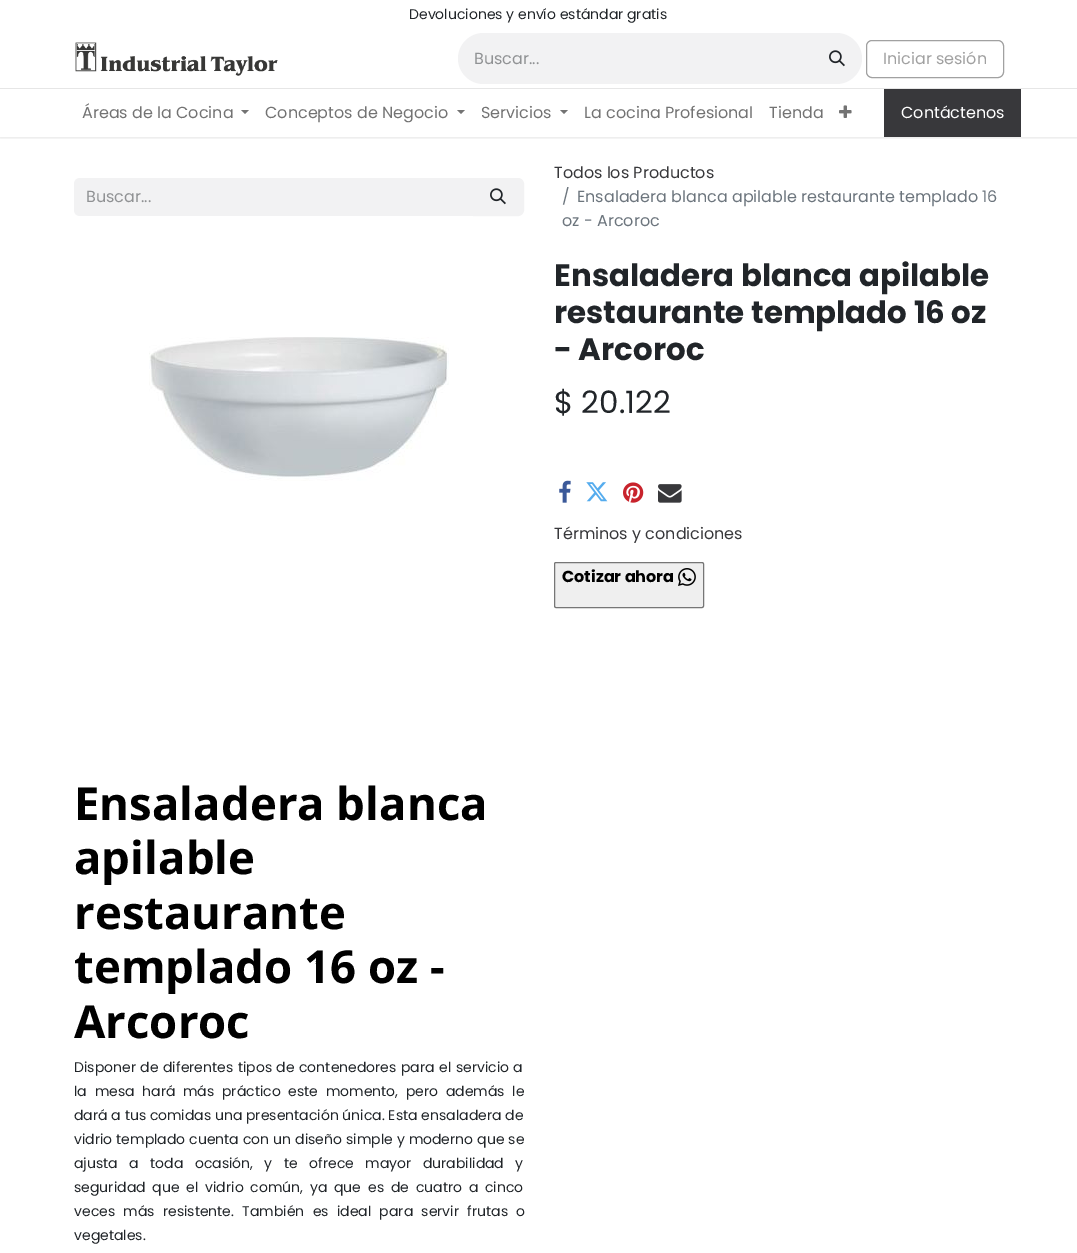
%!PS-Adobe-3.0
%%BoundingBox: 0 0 1077 1253
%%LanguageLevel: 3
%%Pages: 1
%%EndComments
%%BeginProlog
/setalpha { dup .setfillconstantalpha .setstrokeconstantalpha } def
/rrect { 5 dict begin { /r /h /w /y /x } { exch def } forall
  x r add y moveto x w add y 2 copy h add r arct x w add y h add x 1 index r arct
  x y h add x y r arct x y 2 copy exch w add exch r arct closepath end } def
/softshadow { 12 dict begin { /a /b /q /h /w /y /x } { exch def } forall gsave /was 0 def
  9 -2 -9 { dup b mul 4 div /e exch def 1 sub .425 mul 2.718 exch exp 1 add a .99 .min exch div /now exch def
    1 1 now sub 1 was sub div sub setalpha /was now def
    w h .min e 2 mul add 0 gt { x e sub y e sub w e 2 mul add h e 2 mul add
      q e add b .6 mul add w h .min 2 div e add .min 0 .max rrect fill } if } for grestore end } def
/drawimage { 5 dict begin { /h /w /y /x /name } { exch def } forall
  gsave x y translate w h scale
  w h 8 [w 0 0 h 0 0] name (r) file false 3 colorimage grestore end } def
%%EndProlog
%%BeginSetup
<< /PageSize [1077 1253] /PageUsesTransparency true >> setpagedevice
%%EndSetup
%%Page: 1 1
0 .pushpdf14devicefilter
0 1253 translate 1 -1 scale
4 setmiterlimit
1 setgray
0 0 1077 1253 rectfill
gsave
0 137 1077 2 rectclip
0 setgray
0 1 1077 137 0 1.5 0.1 softshadow
grestore
(images/1.raw) 75 42 203 34 drawimage
0.949 0.949 0.953 setrgbcolor
newpath 483.5 33 moveto 813 33 lineto 813 84 lineto 483.5 84 lineto 469.5 84 458 72.5 458 58.5 curveto 458 44.5 469.5 33 483.5 33 curveto closepath fill
newpath 812 33 moveto 836.5 33 lineto 850.5 33 862 44.5 862 58.5 curveto 862 72.5 850.5 84 836.5 84 curveto 812 84 lineto closepath fill
(images/2.raw) 829 50 16 17 drawimage
0.631 setgray
866.5 40.5 137 37 5.5 rrect stroke
0.902 setgray
0 88 1077 1 rectfill
0.451 setgray
newpath 241 110 moveto 249 110 lineto 245 114 lineto closepath fill
newpath 457 110 moveto 465 110 lineto 461 114 lineto closepath fill
newpath 560 110 moveto 568 110 lineto 564 114 lineto closepath fill
(images/3.raw) 839 105 13 13 drawimage
0.22 0.22 0.231 setrgbcolor
884 89 137 48 rectfill
0.949 0.949 0.953 setrgbcolor
newpath 80 178 moveto 474 178 lineto 474 216 lineto 80 216 lineto 76.5 216 74 213.5 74 210 curveto 74 184 lineto 74 180.5 76.5 178 80 178 curveto closepath fill
newpath 473.5 178.5 moveto 518 178.5 lineto 521 178.5 523.5 181 523.5 184 curveto 523.5 210 lineto 523.5 213 521 215.5 518 215.5 curveto 473.5 215.5 lineto closepath gsave fill grestore
stroke
(images/2.raw) 490 188 16 17 drawimage
(images/4.raw) 149 337 300 144 drawimage
(images/5.raw) 559 480 12 23 drawimage
(images/6.raw) 586 482 22 20 drawimage
(images/7.raw) 623 482 21 21 drawimage
(images/8.raw) 658 484 24 19 drawimage
0.937 setgray
554.5 562.5 149 45 1.5 rrect gsave fill grestore
0.463 setgray
stroke
(images/9.raw) 678 568 18 18 drawimage
/Poppins-Regular [14 0 0 -14 0 0] selectfont
0.129 0.145 0.161 setrgbcolor
409 19 moveto (Devoluciones y envío estándar gratis) show
/Poppins-Regular [16 0 0 -16 0 0] selectfont
0.565 0.573 0.58 setrgbcolor
474 64 moveto (Buscar...) show
0.631 setgray
883 64 moveto (Iniciar sesión) show
0.451 setgray
82 118 moveto (Áreas de la Cocina) show
265 118 moveto (Conceptos de Negocio) show
481 118 moveto (Servicios) show
584 118 moveto (La cocina Profesional) show
769 118 moveto (Tienda) show
1 setgray
901 118 moveto (Contáctenos) show
0.565 0.573 0.58 setrgbcolor
86 202 moveto (Buscar...) show
0.22 0.22 0.231 setrgbcolor
554 178 moveto (Todos los Productos) show
0.424 0.459 0.49 setrgbcolor
562 202 moveto (/) show
577 202 moveto (Ensaladera blanca apilable restaurante templado 16) show
562 226 moveto (oz - Arcoroc) show
/Poppins-Bold [30.9 0 0 -30.9 0 0] selectfont
0.129 0.145 0.161 setrgbcolor
554 286 moveto (Ensaladera blanca apilable) show
554 323 moveto (restaurante templado 16 oz) show
554 360 moveto (- Arcoroc) show
/Poppins-Regular [30.9 0 0 -30.9 0 0] selectfont
554 413 moveto ($ 20.122) show
/Poppins-Regular [16 0 0 -16 0 0] selectfont
0.22 0.22 0.231 setrgbcolor
554 539 moveto (Términos y condiciones) show
/Poppins-Bold [16 0 0 -16 0 0] selectfont
0 setgray
562 582 moveto (Cotizar ahora) show
/OpenSans-Bold [45.5 0 0 -45.5 0 0] selectfont
74 820 moveto (Ensaladera blanca) show
74 874 moveto (apilable) show
74 929 moveto (restaurante) show
74 983 moveto (templado 16 oz -) show
74 1038 moveto (Arcoroc) show
/Poppins-Regular [14 0 0 -14 0 0] selectfont
0.129 0.145 0.161 setrgbcolor
74 1072 moveto 0.75 0 32 (Disponer de diferentes tipos de contenedores para el servicio a) widthshow
74 1096 moveto 4 0 32 (la mesa hará más práctico este momento, pero además le) widthshow
74 1120 moveto (dará a tus comidas una presentación única. Esta ensaladera de) show
74 1144 moveto 0.25 0 32 (vidrio templado cuenta con un diseño simple y moderno que se) widthshow
74 1168 moveto 7.75 0 32 (ajusta a toda ocasión, y te ofrece mayor durabilidad y) widthshow
74 1192 moveto 3.1 0 32 (seguridad que el vidrio común, ya que es de cuatro a cinco) widthshow
74 1216 moveto 4.5 0 32 (veces más resistente. También es ideal para servir frutas o) widthshow
74 1240 moveto (vegetales.) show
.poppdf14devicefilter showpage
%%EOF
